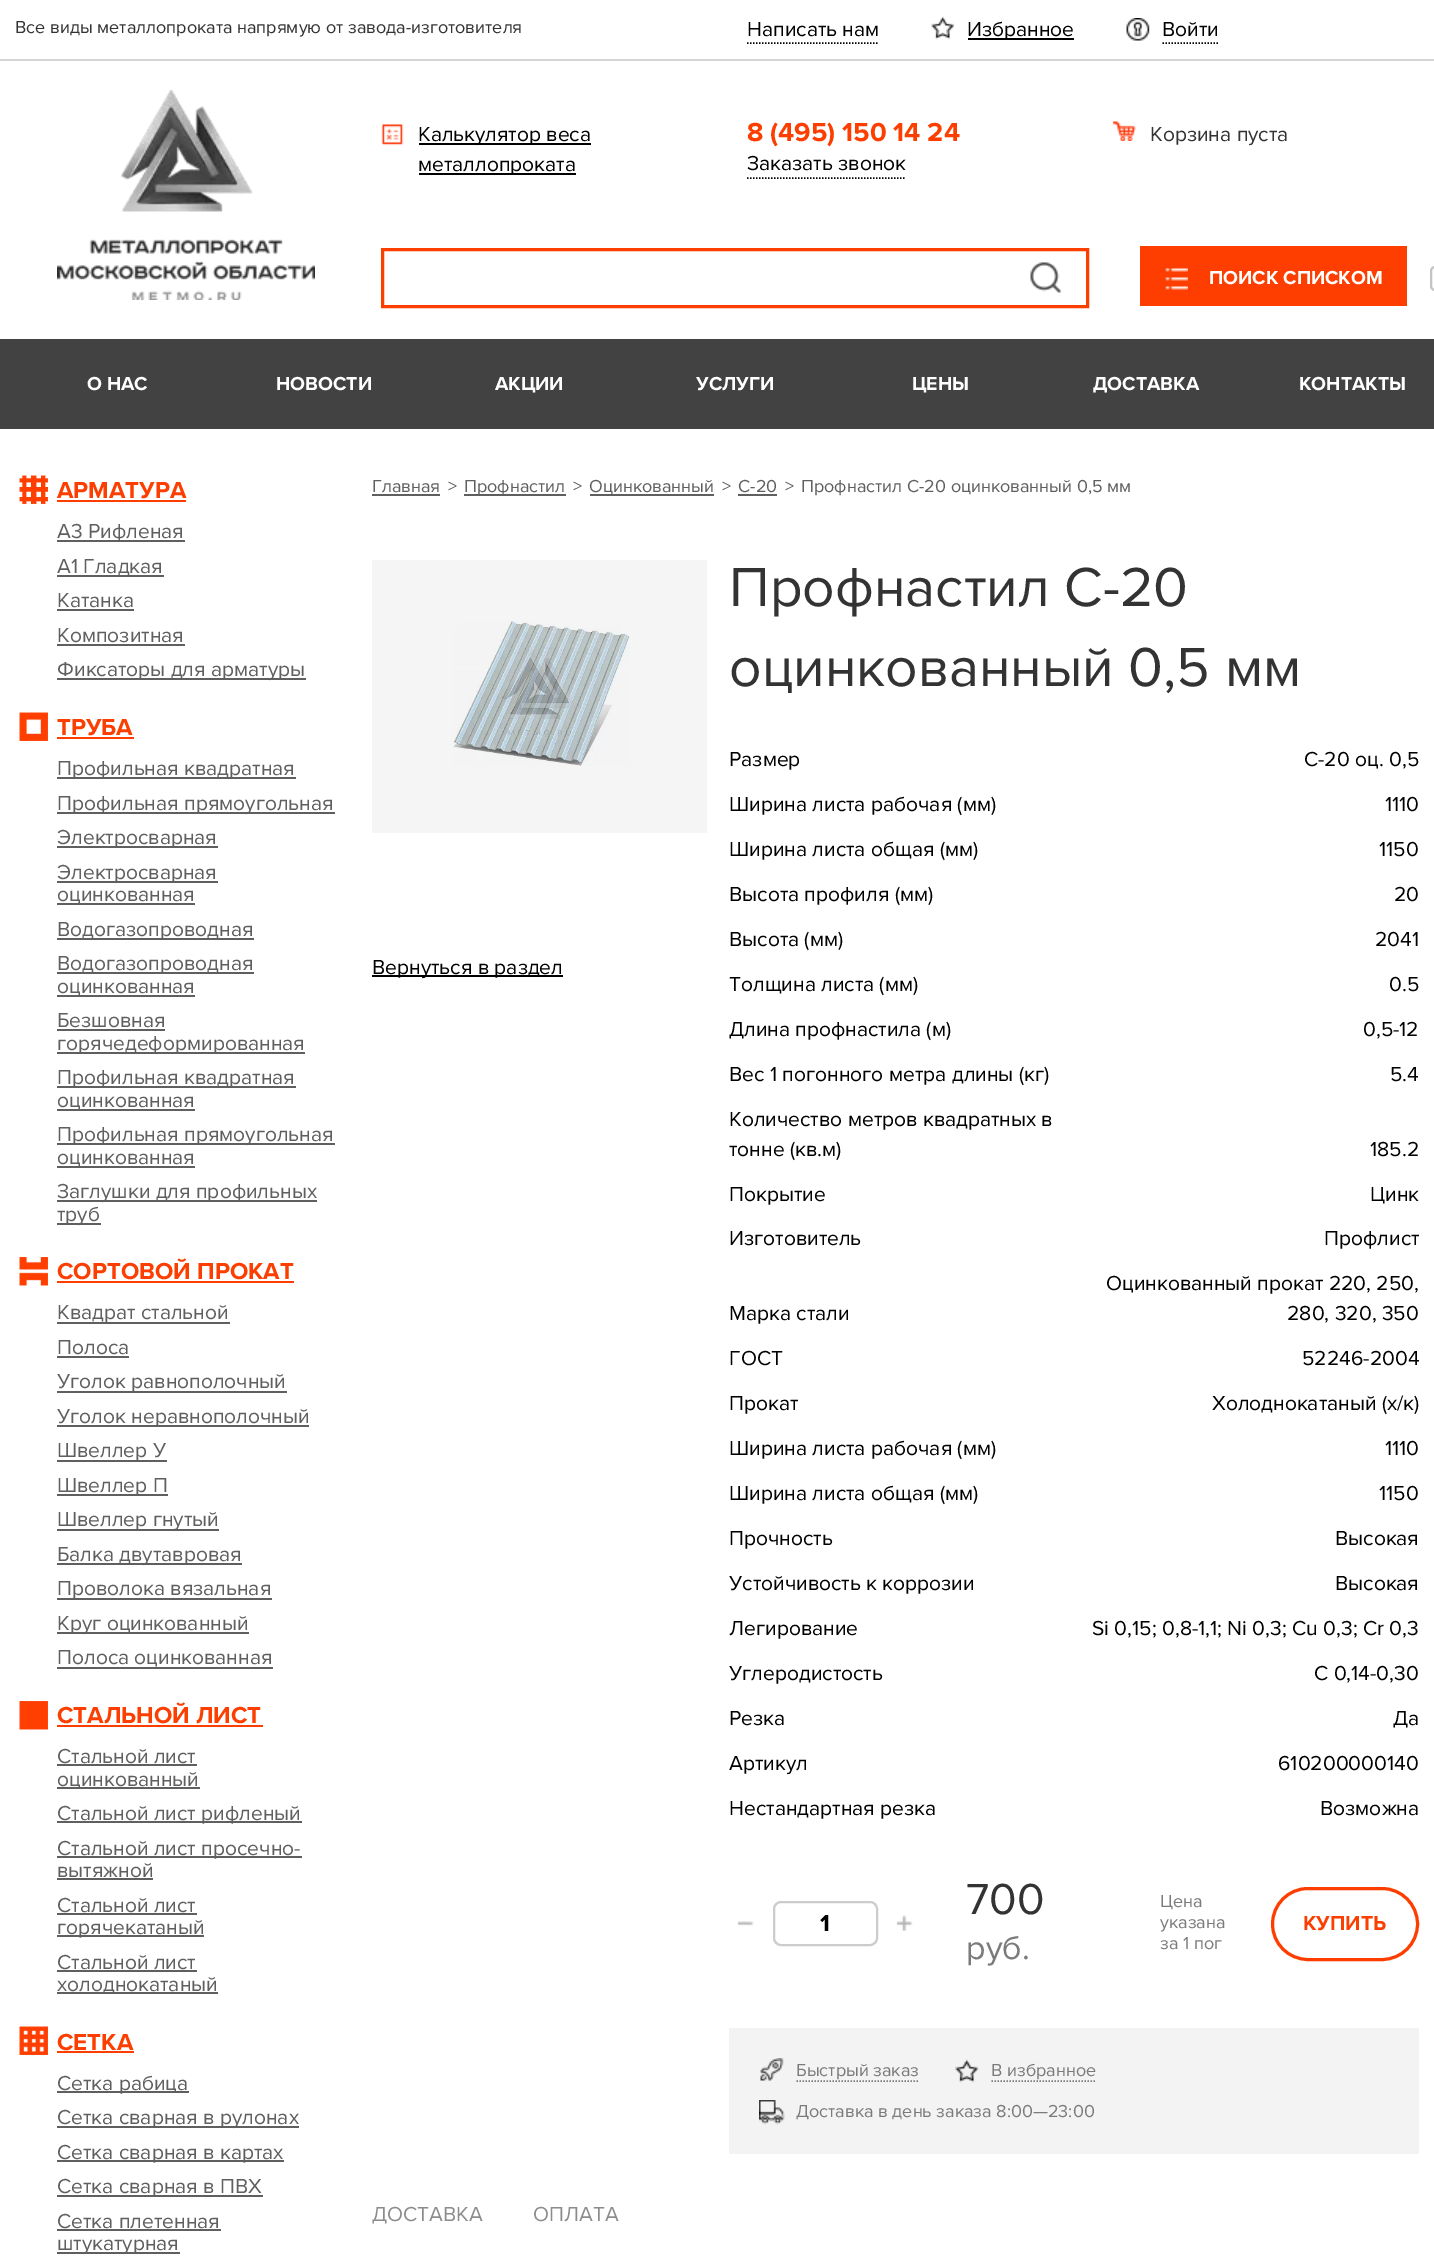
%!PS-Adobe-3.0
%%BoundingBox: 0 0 1434 2262
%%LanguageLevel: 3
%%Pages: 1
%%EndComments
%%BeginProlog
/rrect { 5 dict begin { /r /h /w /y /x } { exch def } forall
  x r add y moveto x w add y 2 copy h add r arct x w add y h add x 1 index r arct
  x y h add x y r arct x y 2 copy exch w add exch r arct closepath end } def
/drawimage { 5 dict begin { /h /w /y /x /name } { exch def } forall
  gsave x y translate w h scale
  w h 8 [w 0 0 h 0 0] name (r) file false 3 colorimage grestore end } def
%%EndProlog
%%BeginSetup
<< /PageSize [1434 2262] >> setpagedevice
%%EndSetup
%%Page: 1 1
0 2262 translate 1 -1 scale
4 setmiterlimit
1 setgray
0 0 1434 2262 rectfill
0.835 setgray
0 59 1434 2 rectfill
0 setgray
1.5 setlinewidth
[1.5 1.5] 0 setdash
newpath 747 43 moveto 879 43 lineto stroke
(images/1.raw) 931 16 23 24 drawimage
968 38 106 2 rectfill
(images/2.raw) 1126 18 24 23 drawimage
newpath 1162.5 43 moveto 1219.5 43 lineto stroke
(images/3.raw) 57 90 258 210 drawimage
(images/4.raw) 381 124 23 22 drawimage
419 143 172 2 rectfill
419 173 157 2 rectfill
newpath 747 178 moveto 906 178 lineto stroke
(images/5.raw) 1112 121 24 20 drawimage
0.988 0.247 0 setrgbcolor
3 setlinewidth
[] 0 setdash
382.5 249.5 705 57 rectstroke
(images/6.raw) 1030 262 31 31 drawimage
0.996 0.243 0 setrgbcolor
1140 246 267 60 rectfill
(images/7.raw) 1165 268 23 22 drawimage
0.769 setgray
2 setlinewidth
1431 267 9 23 4 rrect stroke
0.259 setgray
0 339 1434 90 rectfill
(images/8.raw) 19 475 29 29 drawimage
0.996 0.243 0 setrgbcolor
57 500 129 2 rectfill
0.373 setgray
57 540 128 2 rectfill
57 575 107 2 rectfill
57 609 77 2 rectfill
57 644 128 2 rectfill
57 678 249 2 rectfill
(images/9.raw) 19 712 29 29 drawimage
0.996 0.243 0 setrgbcolor
57 737 77 2 rectfill
0.373 setgray
57 777 239 2 rectfill
57 812 278 2 rectfill
57 846 161 2 rectfill
57 881 161 2 rectfill
57 903 138 2 rectfill
57 938 197 2 rectfill
57 972 197 2 rectfill
57 995 138 2 rectfill
57 1029 108 2 rectfill
57 1052 248 2 rectfill
57 1086 239 2 rectfill
57 1109 138 2 rectfill
57 1143 278 2 rectfill
57 1166 138 2 rectfill
57 1200 260 2 rectfill
57 1223 44 2 rectfill
(images/10.raw) 19 1257 29 29 drawimage
0.996 0.243 0 setrgbcolor
57 1281 237 2 rectfill
0.373 setgray
57 1322 173 2 rectfill
57 1356 72 2 rectfill
57 1391 230 2 rectfill
57 1425 252 2 rectfill
57 1460 110 2 rectfill
57 1494 111 2 rectfill
57 1529 162 2 rectfill
57 1563 185 2 rectfill
57 1598 215 2 rectfill
57 1632 192 2 rectfill
57 1667 216 2 rectfill
(images/11.raw) 19 1701 29 29 drawimage
0.996 0.243 0 setrgbcolor
57 1725 206 2 rectfill
0.373 setgray
57 1764 140 2 rectfill
57 1787 143 2 rectfill
57 1821 245 2 rectfill
57 1856 245 2 rectfill
57 1878 96 2 rectfill
57 1913 140 2 rectfill
57 1935 147 2 rectfill
57 1970 140 2 rectfill
57 1992 161 2 rectfill
(images/12.raw) 19 2026 29 29 drawimage
0.996 0.243 0 setrgbcolor
57 2051 77 2 rectfill
0.373 setgray
57 2091 132 2 rectfill
57 2126 242 2 rectfill
57 2160 227 2 rectfill
57 2195 206 2 rectfill
57 2229 164 2 rectfill
57 2252 123 2 rectfill
372 494 68 2 rectfill
464 494 102 2 rectfill
590 494 124 2 rectfill
738 494 39 2 rectfill
0.961 setgray
372 560 335 273 rectfill
(images/13.raw) 453 621 177 145 drawimage
0 setgray
372 975 191 2 rectfill
(images/14.raw) 737 1921 17 5 drawimage
0.8 setgray
774 1902 103 43 7 rrect stroke
(images/15.raw) 896 1915 17 16 drawimage
0.996 0.243 0 setrgbcolor
3 setlinewidth
1272.5 1888.5 145 71 35.5 rrect stroke
0.953 setgray
729 2028 690 126 rectfill
(images/16.raw) 760 2058 24 23 drawimage
0.482 setgray
1.5 setlinewidth
[1.5 1.5] 0 setdash
newpath 796.5 2081 moveto 919.5 2081 lineto stroke
(images/17.raw) 955 2059 24 24 drawimage
newpath 991.5 2081 moveto 1096.5 2081 lineto stroke
(images/18.raw) 759 2100 26 25 drawimage
/ProximaNova-Regular [18 0 0 -18 0 0] selectfont
0.2 setgray
15 33 moveto (Все виды металлопроката напрямую от завода-изготовителя) show
/ProximaNova-Regular [21 0 0 -21 0 0] selectfont
0 setgray
747 36 moveto (Написать нам) show
967 36 moveto (Избранное) show
1162 36 moveto (Войти) show
418 141 moveto (Калькулятор веса) show
418 171 moveto (металлопроката) show
/ProximaNova-Bold [27 0 0 -27 0 0] selectfont
0.988 0.247 0 setrgbcolor
747 141 moveto (8 \(495\) 150 14 24) show
/ProximaNova-Regular [21 0 0 -21 0 0] selectfont
0 setgray
747 170 moveto (Заказать звонок) show
0.2 setgray
1150 141 moveto (Корзина пуста) show
/ProximaNova-Bold [19.5 0 0 -19.5 0 0] selectfont
1 setgray
1209 284 moveto (ПОИСК СПИСКОМ) show
87 390 moveto (О НАС) show
276 390 moveto (НОВОСТИ) show
495 390 moveto (АКЦИИ) show
696 390 moveto (УСЛУГИ) show
912 390 moveto (ЦЕНЫ) show
1093 390 moveto (ДОСТАВКА) show
1299 390 moveto (КОНТАКТЫ) show
/ProximaNova-Bold [24 0 0 -24 0 0] selectfont
0.988 0.247 0 setrgbcolor
57 498 moveto (АРМАТУРА) show
/ProximaNova-Regular [21 0 0 -21 0 0] selectfont
0.373 setgray
57 538 moveto (А3 Рифленая) show
57 573 moveto (А1 Гладкая) show
57 607 moveto (Катанка) show
57 642 moveto (Композитная) show
57 676 moveto (Фиксаторы для арматуры) show
/ProximaNova-Bold [24 0 0 -24 0 0] selectfont
0.988 0.247 0 setrgbcolor
57 735 moveto (ТРУБА) show
/ProximaNova-Regular [21 0 0 -21 0 0] selectfont
0.373 setgray
57 775 moveto (Профильная квадратная) show
57 810 moveto (Профильная прямоугольная) show
57 844 moveto (Электросварная) show
57 879 moveto (Электросварная) show
57 901 moveto (оцинкованная) show
57 936 moveto (Водогазопроводная) show
57 970 moveto (Водогазопроводная) show
57 993 moveto (оцинкованная) show
57 1027 moveto (Безшовная) show
57 1050 moveto (горячедеформированная) show
57 1084 moveto (Профильная квадратная) show
57 1107 moveto (оцинкованная) show
57 1141 moveto (Профильная прямоугольная) show
57 1164 moveto (оцинкованная) show
57 1198 moveto (Заглушки для профильных) show
57 1221 moveto (труб) show
/ProximaNova-Bold [24 0 0 -24 0 0] selectfont
0.988 0.247 0 setrgbcolor
57 1279 moveto (СОРТОВОЙ ПРОКАТ) show
/ProximaNova-Regular [21 0 0 -21 0 0] selectfont
0.373 setgray
57 1319 moveto (Квадрат стальной) show
57 1354 moveto (Полоса) show
57 1388 moveto (Уголок равнополочный) show
57 1423 moveto (Уголок неравнополочный) show
57 1457 moveto (Швеллер У) show
57 1492 moveto (Швеллер П) show
57 1526 moveto (Швеллер гнутый) show
57 1561 moveto (Балка двутавровая) show
57 1595 moveto (Проволока вязальная) show
57 1630 moveto (Круг оцинкованный) show
57 1664 moveto (Полоса оцинкованная) show
/ProximaNova-Bold [24 0 0 -24 0 0] selectfont
0.988 0.247 0 setrgbcolor
57 1723 moveto (СТАЛЬНОЙ ЛИСТ) show
/ProximaNova-Regular [21 0 0 -21 0 0] selectfont
0.373 setgray
57 1763 moveto (Стальной лист) show
57 1786 moveto (оцинкованный) show
57 1820 moveto (Стальной лист рифленый) show
57 1855 moveto (Стальной лист просечно-) show
57 1877 moveto (вытяжной) show
57 1912 moveto (Стальной лист) show
57 1934 moveto (горячекатаный) show
57 1969 moveto (Стальной лист) show
57 1991 moveto (холоднокатаный) show
/ProximaNova-Bold [24 0 0 -24 0 0] selectfont
0.988 0.247 0 setrgbcolor
57 2050 moveto (СЕТКА) show
/ProximaNova-Regular [21 0 0 -21 0 0] selectfont
0.373 setgray
57 2090 moveto (Сетка рабица) show
57 2124 moveto (Сетка сварная в рулонах) show
57 2159 moveto (Сетка сварная в картах) show
57 2193 moveto (Сетка сварная в ПВХ) show
57 2228 moveto (Сетка плетенная) show
57 2250 moveto (штукатурная) show
/ProximaNova-Regular [18 0 0 -18 0 0] selectfont
372 492 moveto (Главная) show
448 492 moveto (>) show
464 492 moveto (Профнастил) show
573 492 moveto (>) show
589 492 moveto (Оцинкованный) show
722 492 moveto (>) show
738 492 moveto (С-20) show
785 492 moveto (>) show
801 492 moveto (Профнастил С-20 оцинкованный 0,5 мм) show
/ProximaNova-Regular [21 0 0 -21 0 0] selectfont
0 setgray
372 974 moveto (Вернуться в раздел) show
/ProximaNova-Regular [57 0 0 -57 0 0] selectfont
0.2 setgray
729 606 moveto (Профнастил С-20) show
729 686 moveto (оцинкованный 0,5 мм) show
/ProximaNova-Regular [21 0 0 -21 0 0] selectfont
0 setgray
729 766 moveto (Размер) show
1304 766 moveto (С-20 оц. 0,5) show
729 811 moveto (Ширина листа рабочая \(мм\)) show
1385 811 moveto (1110) show
729 856 moveto (Ширина листа общая \(мм\)) show
1379 856 moveto (1150) show
729 901 moveto (Высота профиля \(мм\)) show
1394 901 moveto (20) show
729 946 moveto (Высота \(мм\)) show
1375 946 moveto (2041) show
729 991 moveto (Толщина листа \(мм\)) show
1389 991 moveto (0.5) show
729 1036 moveto (Длина профнастила \(м\)) show
1363 1036 moveto (0,5-12) show
729 1081 moveto (Вес 1 погонного метра длины \(кг\)) show
1390 1081 moveto (5.4) show
729 1126 moveto (Количество метров квадратных в) show
729 1156 moveto (тонне \(кв.м\)) show
1370 1156 moveto (185.2) show
729 1201 moveto (Покрытие) show
1370 1201 moveto (Цинк) show
729 1245 moveto (Изготовитель) show
1324 1245 moveto (Профлист) show
729 1320 moveto (Марка стали) show
1106 1290 moveto (Оцинкованный прокат 220, 250,) show
1287 1320 moveto (280, 320, 350) show
729 1365 moveto (ГОСТ) show
1302 1365 moveto (52246-2004) show
729 1410 moveto (Прокат) show
1212 1410 moveto (Холоднокатаный \(х/к\)) show
729 1455 moveto (Ширина листа рабочая \(мм\)) show
1385 1455 moveto (1110) show
729 1500 moveto (Ширина листа общая \(мм\)) show
1379 1500 moveto (1150) show
729 1545 moveto (Прочность) show
1335 1545 moveto (Высокая) show
729 1590 moveto (Устойчивость к коррозии) show
1335 1590 moveto (Высокая) show
729 1635 moveto (Легирование) show
1092 1635 moveto (Si 0,15; 0,8-1,1; Ni 0,3; Сu 0,3; Cr 0,3) show
729 1680 moveto (Углеродистость) show
1314 1680 moveto (C 0,14-0,30) show
729 1725 moveto (Резка) show
1393 1725 moveto (Да) show
729 1770 moveto (Артикул) show
1278 1770 moveto (610200000140) show
729 1815 moveto (Нестандартная резка) show
1320 1815 moveto (Возможна) show
/ProximaNova-Bold [24 0 0 -24 0 0] selectfont
820 1931 moveto (1) show
/ProximaNova-Regular [45 0 0 -45 0 0] selectfont
0.2 setgray
966 1914 moveto (700) show
/ProximaNova-Regular [34 0 0 -34 0 0] selectfont
0.482 setgray
966 1959 moveto (руб.) show
/ProximaNova-Regular [18 0 0 -18 0 0] selectfont
1160 1907 moveto (Цена) show
1160 1928 moveto (указана) show
1160 1949 moveto (за 1 пог) show
/ProximaNova-Bold [21 0 0 -21 0 0] selectfont
0.988 0.247 0 setrgbcolor
1303 1930 moveto (КУПИТЬ) show
/ProximaNova-Regular [18 0 0 -18 0 0] selectfont
0.482 setgray
796 2076 moveto (Быстрый заказ) show
991 2076 moveto (В избранное) show
796 2117 moveto (Доставка в день заказа 8:00—23:00) show
/ProximaNova-Regular [21 0 0 -21 0 0] selectfont
0.549 setgray
372 2221 moveto (ДОСТАВКА) show
533 2221 moveto (ОПЛАТА) show
showpage
%%EOF
